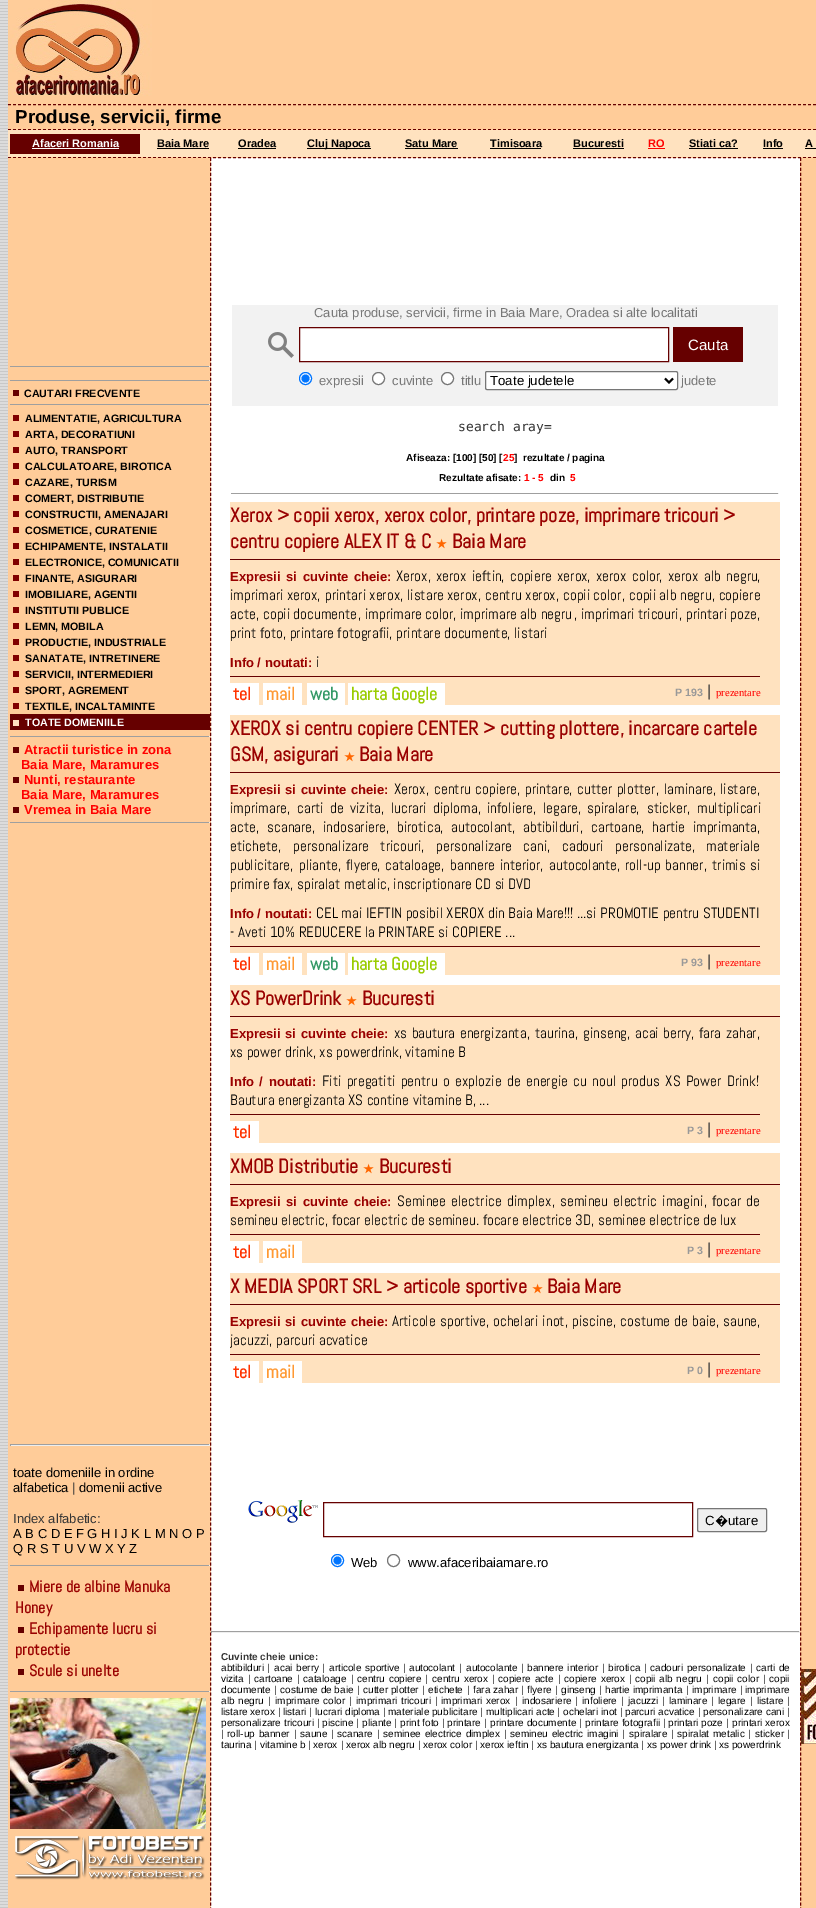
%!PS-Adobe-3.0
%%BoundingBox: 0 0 816 1908
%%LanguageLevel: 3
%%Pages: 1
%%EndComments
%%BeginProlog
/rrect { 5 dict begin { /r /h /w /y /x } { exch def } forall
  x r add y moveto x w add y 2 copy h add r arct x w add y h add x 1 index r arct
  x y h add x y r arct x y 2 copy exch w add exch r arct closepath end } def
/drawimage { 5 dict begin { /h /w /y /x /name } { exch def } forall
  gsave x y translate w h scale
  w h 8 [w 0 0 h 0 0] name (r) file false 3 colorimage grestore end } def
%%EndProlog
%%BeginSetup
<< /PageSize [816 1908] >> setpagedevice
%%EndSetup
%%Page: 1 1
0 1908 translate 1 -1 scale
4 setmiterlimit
1 setgray
0 0 816 1908 rectfill
(images/1.raw) 0 0 8 1908 drawimage
1 0.8 0.6 setrgbcolor
8 0 808 130 rectfill
0.4 0 0 setrgbcolor
[3 2] 0 setdash
newpath 8 104.5 moveto 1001 104.5 lineto stroke
(images/2.raw) 8 0 144 96 drawimage
newpath 8 129.5 moveto 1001 129.5 lineto stroke
1 0.8 0.6 setrgbcolor
11 157 802 1 rectfill
0.4 0 0 setrgbcolor
newpath 8 157.5 moveto 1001 157.5 lineto stroke
1 0.886 0.749 setrgbcolor
8 130 808 27 rectfill
0.4 0 0 setrgbcolor
10 134 130 20 rectfill
1 setgray
32 148 87 1 rectfill
0 setgray
157 148 52 1 rectfill
238 148 38 1 rectfill
307 148 64 1 rectfill
405 148 53 1 rectfill
490 148 51 1 rectfill
573 148 51 1 rectfill
1 0 0 setrgbcolor
648 148 17 1 rectfill
0 setgray
689 148 49 1 rectfill
763 148 20 1 rectfill
805 148 11 1 rectfill
1 0.8 0.6 setrgbcolor
8 158 203 1750 rectfill
0.4 0 0 setrgbcolor
newpath 210.5 158 moveto 210.5 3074 lineto stroke
0.624 setgray
10 366 200 1 rectfill
0.933 setgray
209 366 1 1 rectfill
0.624 setgray
10 380 200 1 rectfill
0.933 setgray
209 380 1 1 rectfill
0.4 0 0 setrgbcolor
13 390 6 6 rectfill
0.624 setgray
10 404 200 1 rectfill
0.933 setgray
209 404 1 1 rectfill
0.502 0 0 setrgbcolor
13 415 6 6 rectfill
13 431 6 6 rectfill
13 447 6 6 rectfill
13 463 6 6 rectfill
13 479 6 6 rectfill
13 495 6 6 rectfill
13 511 6 6 rectfill
13 527 6 6 rectfill
13 543 6 6 rectfill
13 559 6 6 rectfill
13 575 6 6 rectfill
13 591 6 6 rectfill
13 607 6 6 rectfill
13 623 6 6 rectfill
13 639 6 6 rectfill
13 655 6 6 rectfill
13 671 6 6 rectfill
13 687 6 6 rectfill
13 703 6 6 rectfill
0.4 0 0 setrgbcolor
10 714 200 16 rectfill
1 0.875 0.749 setrgbcolor
13 720 6 6 rectfill
0.624 setgray
10 736 200 1 rectfill
0.933 setgray
209 736 1 1 rectfill
0.4 0 0 setrgbcolor
13 747 6 6 rectfill
13 777 6 6 rectfill
13 807 6 6 rectfill
0.624 setgray
10 822 200 1 rectfill
0.933 setgray
209 822 1 1 rectfill
0.624 setgray
10 1444 200 1 rectfill
0.933 setgray
209 1444 1 2 rectfill
10 1445 200 1 rectfill
0.624 setgray
10 1444 1 2 rectfill
10 1565 200 1 rectfill
0.933 setgray
209 1565 1 1 rectfill
0.4 0 0 setrgbcolor
18 1585 6 6 rectfill
18 1627 6 6 rectfill
18 1669 6 6 rectfill
0.624 setgray
10 1691 200 1 rectfill
0.933 setgray
209 1691 1 1 rectfill
(images/3.raw) 10 1698 196 131 drawimage
(images/4.raw) 15 1836 190 44 drawimage
0.949 setgray
232 305 546 101 rectfill
(images/5.raw) 268 332 26 26 drawimage
1 setgray
newpath 299.5 327.5 moveto 668.5 327.5 lineto 668.5 361.5 lineto 299.5 361.5 lineto closepath gsave fill grestore
0.4 0 0 setrgbcolor
[] 0 setdash
stroke
673 327 70 35 rectfill
1 setgray
newpath 305.5 378.5 6 0 360 arc closepath gsave fill grestore
0 0.459 1 setrgbcolor
stroke
newpath 305.5 378.5 4 0 360 arc closepath fill
1 setgray
newpath 378.5 378.5 6 0 360 arc closepath gsave fill grestore
0.463 setgray
stroke
1 setgray
newpath 447.5 378.5 6 0 360 arc closepath gsave fill grestore
0.463 setgray
stroke
1 setgray
485.5 371.5 192 18 1.5 rrect gsave fill grestore
0.463 setgray
stroke
0 setgray
2 setlinewidth
newpath 665 378.5 moveto 669 382.5 lineto 673 378.5 lineto stroke
0.624 setgray
231 493 548 1 rectfill
0.933 setgray
778 493 1 1 rectfill
1 0.886 0.749 setrgbcolor
230 502 550 203 rectfill
0.4 0 0 setrgbcolor
230 559 550 1 rectfill
230 676 530 1 rectfill
1 setgray
230 683 29 22 rectfill
263 683 39 22 rectfill
307 683 38 22 rectfill
348 683 97 22 rectfill
1 0.886 0.749 setrgbcolor
230 715 550 260 rectfill
0.4 0 0 setrgbcolor
230 772 550 1 rectfill
230 946 530 1 rectfill
1 setgray
230 953 29 22 rectfill
263 953 39 22 rectfill
307 953 38 22 rectfill
348 953 97 22 rectfill
1 0.886 0.749 setrgbcolor
230 985 550 158 rectfill
0.4 0 0 setrgbcolor
230 1016 550 1 rectfill
230 1114 530 1 rectfill
1 setgray
230 1121 29 22 rectfill
1 0.886 0.749 setrgbcolor
230 1153 550 110 rectfill
0.4 0 0 setrgbcolor
230 1184 550 1 rectfill
230 1234 530 1 rectfill
1 setgray
230 1241 29 22 rectfill
263 1241 39 22 rectfill
1 0.886 0.749 setrgbcolor
230 1273 550 110 rectfill
0.4 0 0 setrgbcolor
230 1304 550 1 rectfill
230 1354 530 1 rectfill
1 setgray
230 1361 29 22 rectfill
263 1361 39 22 rectfill
(images/6.raw) 248 1500 70 23 drawimage
0.4 0 0 setrgbcolor
1 setlinewidth
323.5 1502.5 369 34 rectstroke
0.937 setgray
697.5 1508.5 69 23 1.5 rrect gsave fill grestore
0.463 setgray
stroke
0 0.459 1 setrgbcolor
newpath 337.5 1560.5 6 0 360 arc closepath stroke
newpath 337.5 1560.5 4 0 360 arc closepath fill
0.463 setgray
newpath 393.5 1560.5 6 0 360 arc closepath stroke
0.624 setgray
211 1631 589 1 rectfill
0.933 setgray
799 1631 1 2 rectfill
211 1632 589 1 rectfill
0.624 setgray
211 1631 1 2 rectfill
1 0.8 0.6 setrgbcolor
800 158 16 1750 rectfill
0.4 0 0 setrgbcolor
[3 2] 0 setdash
newpath 800.5 158 moveto 800.5 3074 lineto stroke
(images/7.raw) 801 1669 15 75 drawimage
/LiberationSans-Bold [18.75 0 0 -18.75 0 0] selectfont
0 setgray
15 123 moveto (Produse, servicii, firme) show
/LiberationSans-Bold [11 0 0 -11 0 0] selectfont
1 setgray
32 147 moveto (Afaceri Romania) show
0 setgray
157 147 moveto (Baia Mare) show
238 147 moveto (Oradea) show
307 147 moveto (Cluj Napoca) show
405 147 moveto (Satu Mare) show
490 147 moveto (Timisoara) show
573 147 moveto (Bucuresti) show
1 0 0 setrgbcolor
648 147 moveto (RO) show
0 setgray
689 147 moveto (Stiati ca?) show
763 147 moveto (Info) show
805 147 moveto (A) show
/LiberationSans-Bold [10.7 0 0 -10.7 0 0] selectfont
24 397 moveto (CAUTARI FRECVENTE) show
25 422 moveto (ALIMENTATIE, AGRICULTURA) show
25 438 moveto (ARTA, DECORATIUNI) show
25 454 moveto (AUTO, TRANSPORT) show
25 470 moveto (CALCULATOARE, BIROTICA) show
25 486 moveto (CAZARE, TURISM) show
25 502 moveto (COMERT, DISTRIBUTIE) show
25 518 moveto (CONSTRUCTII, AMENAJARI) show
25 534 moveto (COSMETICE, CURATENIE) show
25 550 moveto (ECHIPAMENTE, INSTALATII) show
25 566 moveto (ELECTRONICE, COMUNICATII) show
25 582 moveto (FINANTE, ASIGURARI) show
25 598 moveto (IMOBILIARE, AGENTII) show
25 614 moveto (INSTITUTII PUBLICE) show
25 630 moveto (LEMN, MOBILA) show
25 646 moveto (PRODUCTIE, INDUSTRIALE) show
25 662 moveto (SANATATE, INTRETINERE) show
25 678 moveto (SERVICII, INTERMEDIERI) show
25 694 moveto (SPORT, AGREMENT) show
25 710 moveto (TEXTILE, INCALTAMINTE) show
1 setgray
25 726 moveto (TOATE DOMENIILE) show
/LiberationSans-Bold [13 0 0 -13 0 0] selectfont
1 0 0 setrgbcolor
24 754 moveto (Atractii turistice in zona) show
21 769 moveto (Baia Mare, Maramures) show
24 784 moveto (Nunti, restaurante) show
21 799 moveto (Baia Mare, Maramures) show
24 814 moveto (Vremea in Baia Mare) show
/LiberationSans-Regular [13 0 0 -13 0 0] selectfont
0 setgray
13 1477 moveto (toate domeniile in ordine) show
13 1492 moveto (alfabetica) show
0.208 setgray
72 1492 moveto (|) show
0 setgray
79 1492 moveto (domenii active) show
0.208 setgray
13 1523 moveto (Index alfabetic:) show
0 setgray
13 1538 moveto (A B C D E F G H I J K L M N O P) show
13 1553 moveto (Q R S T U V W X Y Z) show
/Abel-Bold [16 0 0 -16 0 0] selectfont
0.6 0 0 setrgbcolor
29 1592 moveto (Miere de albine Manuka) show
15 1613 moveto (Honey) show
29 1634 moveto (Echipamente lucru si) show
15 1655 moveto (protectie) show
29 1676 moveto (Scule si unelte) show
/LiberationSans-Regular [13 0 0 -13 0 0] selectfont
0.467 setgray
314 317 moveto (Cauta produse, servicii, firme in Baia Mare, Oradea si alte localitati) show
/LiberationSans-Regular [15 0 0 -15 0 0] selectfont
1 setgray
688 350 moveto (Cauta) show
/LiberationSans-Regular [13 0 0 -13 0 0] selectfont
0.467 setgray
319 385 moveto (expresii) show
392 385 moveto (cuvinte) show
461 385 moveto (titlu) show
/LiberationSans-Regular [13.25 0 0 -13.25 0 0] selectfont
0 setgray
490 385 moveto (Toate judetele) show
/LiberationSans-Regular [13 0 0 -13 0 0] selectfont
0.467 setgray
681 385 moveto (judete) show
/DejaVuSansMono-Regular [13 0 0 -13 0 0] selectfont
0.208 setgray
458 431 moveto (search aray=) show
/LiberationSans-Bold [10 0 0 -10 0 0] selectfont
0 setgray
406 461 moveto (Afiseaza: [100] [50] [) show
1 0 0 setrgbcolor
503 461 moveto (25) show
0 setgray
514 461 moveto (]) show
523 461 moveto (rezultate / pagina) show
439 481 moveto (Rezultate afisate:) show
1 0 0 setrgbcolor
524 481 moveto (1 - 5) show
0 setgray
550 481 moveto (din) show
1 0 0 setrgbcolor
570 481 moveto (5) show
/Abel-Bold [20 0 0 -20 0 0] selectfont
0.6 0 0 setrgbcolor
230 522 moveto (Xerox > copii xerox, xerox color, printare poze, imprimare tricouri >) show
230 548 moveto (centru copiere ALEX IT & C) show
/DejaVuSans-Bold [12 0 0 -12 0 0] selectfont
1 0.4 0 setrgbcolor
436 548 moveto (★) show
/Abel-Bold [20 0 0 -20 0 0] selectfont
0.6 0 0 setrgbcolor
452 548 moveto (Baia Mare) show
/LiberationSans-Bold [13 0 0 -13 0 0] selectfont
230 581 moveto 2 0 32 (Expresii si cuvinte cheie:) widthshow
/Abel-Regular [15 0 0 -15 0 0] selectfont
0 setgray
396 581 moveto (Xerox,) show
436 581 moveto 2 0 32 (xerox ieftin) widthshow
501 581 moveto (,) show
510 581 moveto 2 0 32 (copiere xerox) widthshow
587 581 moveto (,) show
596 581 moveto 2 0 32 (xerox color) widthshow
659 581 moveto (,) show
668 581 moveto 2 0 32 (xerox alb negru) widthshow
757 581 moveto (,) show
230 600 moveto (imprimari xerox,) show
325 600 moveto (printari xerox,) show
407 600 moveto (listare xerox,) show
485 600 moveto (centru xerox,) show
563 600 moveto (copii color,) show
629 600 moveto (copii alb negru) show
712 600 moveto (, copiere) show
230 619 moveto (acte,) show
263 619 moveto (copii documente) show
358 619 moveto (,) show
365 619 moveto (imprimare color) show
453 619 moveto (,) show
460 619 moveto (imprimare alb negru) show
574 619 moveto (,) show
581 619 moveto (imprimari tricouri) show
679 619 moveto (,) show
686 619 moveto (printari poze) show
757 619 moveto (,) show
230 638 moveto (print foto, printare fotografii, printare documente, listari) show
/LiberationSans-Bold [13 0 0 -13 0 0] selectfont
0.6 0 0 setrgbcolor
230 667 moveto (Info / noutati:) show
/Abel-Regular [15 0 0 -15 0 0] selectfont
0 setgray
316 667 moveto (i) show
/Abel-Bold [18 0 0 -18 0 0] selectfont
1 0.2 0 setrgbcolor
233 700 moveto (tel) show
1 0.6 0.2 setrgbcolor
266 700 moveto (mail) show
0.2 0.6 0.4 setrgbcolor
310 700 moveto (web) show
0.6 0.8 0 setrgbcolor
351 700 moveto (harta Google) show
/LiberationSans-Bold [10.7 0 0 -10.7 0 0] selectfont
0.6 setgray
675 696 moveto (P 193) show
/LiberationSans-Regular [16 0 0 -16 0 0] selectfont
0.208 setgray
707 696 moveto (|) show
/LiberationSerif-Regular [10.7 0 0 -10.7 0 0] selectfont
1 0 0 setrgbcolor
716 696 moveto (prezentare) show
/Abel-Bold [20 0 0 -20 0 0] selectfont
0.6 0 0 setrgbcolor
230 735 moveto (XEROX si centru copiere CENTER > cutting plottere, incarcare cartele) show
230 761 moveto (GSM, asigurari) show
/DejaVuSans-Bold [12 0 0 -12 0 0] selectfont
1 0.4 0 setrgbcolor
344 761 moveto (★) show
/Abel-Bold [20 0 0 -20 0 0] selectfont
0.6 0 0 setrgbcolor
359 761 moveto (Baia Mare) show
/LiberationSans-Bold [13 0 0 -13 0 0] selectfont
230 794 moveto 1 0 32 (Expresii si cuvinte cheie:) widthshow
/Abel-Regular [15 0 0 -15 0 0] selectfont
0 setgray
394 794 moveto (Xerox,) show
434 794 moveto 1 0 32 (centru copiere) widthshow
517 794 moveto (,) show
525 794 moveto (printare,) show
577 794 moveto 1 0 32 (cutter plotter) widthshow
656 794 moveto (,) show
664 794 moveto (laminare,) show
720 794 moveto (listare,) show
230 813 moveto (imprimare,) show
297 813 moveto 3 0 32 (carti de vizita) widthshow
381 813 moveto (,) show
391 813 moveto 3 0 32 (lucrari diploma) widthshow
478 813 moveto (,) show
487 813 moveto (infoliere,) show
543 813 moveto (legare,) show
587 813 moveto (spiralare,) show
647 813 moveto (sticker,) show
697 813 moveto (multiplicari) show
230 832 moveto (acte,) show
267 832 moveto (scanare,) show
323 832 moveto (indosariere,) show
397 832 moveto (birotica,) show
451 832 moveto (autocolant,) show
523 832 moveto (abtibilduri,) show
591 832 moveto (cartoane,) show
652 832 moveto 4 0 32 (hartie imprimanta) widthshow
757 832 moveto (,) show
230 851 moveto (etichete,) show
293 851 moveto 8 0 32 (personalizare tricouri) widthshow
421 851 moveto (,) show
436 851 moveto 8 0 32 (personalizare cani) widthshow
547 851 moveto (,) show
562 851 moveto 8 0 32 (cadouri personalizate) widthshow
692 851 moveto (,) show
706 851 moveto (materiale) show
230 870 moveto (publicitare,) show
299 870 moveto (pliante,) show
346 870 moveto (flyere,) show
385 870 moveto (cataloage,) show
450 870 moveto 1 0 32 (bannere interior) widthshow
540 870 moveto (,) show
549 870 moveto (autocolante,) show
625 870 moveto 1 0 32 (roll-up banner) widthshow
704 870 moveto (,) show
712 870 moveto 1 0 32 (trimis si) widthshow
230 889 moveto (primire fax, spiralat metalic, inscriptionare CD si DVD) show
/LiberationSans-Bold [13 0 0 -13 0 0] selectfont
0.6 0 0 setrgbcolor
230 918 moveto (Info / noutati:) show
/Abel-Regular [15 0 0 -15 0 0] selectfont
0 setgray
316 918 moveto (CEL mai IEFTIN posibil XEROX din Baia Mare!!! ...si PROMOTIE pentru STUDENTI) show
230 937 moveto (- Aveti 10% REDUCERE la PRINTARE si COPIERE ...) show
/Abel-Bold [18 0 0 -18 0 0] selectfont
1 0.2 0 setrgbcolor
233 970 moveto (tel) show
1 0.6 0.2 setrgbcolor
266 970 moveto (mail) show
0.2 0.6 0.4 setrgbcolor
310 970 moveto (web) show
0.6 0.8 0 setrgbcolor
351 970 moveto (harta Google) show
/LiberationSans-Bold [10.7 0 0 -10.7 0 0] selectfont
0.6 setgray
681 966 moveto (P 93) show
/LiberationSans-Regular [16 0 0 -16 0 0] selectfont
0.208 setgray
707 966 moveto (|) show
/LiberationSerif-Regular [10.7 0 0 -10.7 0 0] selectfont
1 0 0 setrgbcolor
716 966 moveto (prezentare) show
/Abel-Bold [20 0 0 -20 0 0] selectfont
0.6 0 0 setrgbcolor
230 1005 moveto (XS PowerDrink) show
/DejaVuSans-Bold [12 0 0 -12 0 0] selectfont
1 0.4 0 setrgbcolor
346 1005 moveto (★) show
/Abel-Bold [20 0 0 -20 0 0] selectfont
0.6 0 0 setrgbcolor
362 1005 moveto (Bucuresti) show
/LiberationSans-Bold [13 0 0 -13 0 0] selectfont
230 1038 moveto 1 0 32 (Expresii si cuvinte cheie:) widthshow
/Abel-Regular [15 0 0 -15 0 0] selectfont
0 setgray
394 1038 moveto 1 0 32 (xs bautura energizanta) widthshow
527 1038 moveto (,) show
535 1038 moveto (taurina,) show
583 1038 moveto (ginseng,) show
635 1038 moveto 1 0 32 (acai berry) widthshow
691 1038 moveto (,) show
699 1038 moveto 1 0 32 (fara zahar) widthshow
757 1038 moveto (,) show
230 1057 moveto (xs power drink, xs powerdrink, vitamine B) show
/LiberationSans-Bold [13 0 0 -13 0 0] selectfont
0.6 0 0 setrgbcolor
230 1086 moveto 2 0 32 (Info / noutati:) widthshow
/Abel-Regular [15 0 0 -15 0 0] selectfont
0 setgray
322 1086 moveto 2 0 32 (Fiti pregatiti pentru o explozie de energie cu noul produs XS Power Drink!) widthshow
230 1105 moveto (Bautura energizanta XS contine vitamine B, ...) show
/Abel-Bold [18 0 0 -18 0 0] selectfont
1 0.2 0 setrgbcolor
233 1138 moveto (tel) show
/LiberationSans-Bold [10.7 0 0 -10.7 0 0] selectfont
0.6 setgray
687 1134 moveto (P 3) show
/LiberationSans-Regular [16 0 0 -16 0 0] selectfont
0.208 setgray
707 1134 moveto (|) show
/LiberationSerif-Regular [10.7 0 0 -10.7 0 0] selectfont
1 0 0 setrgbcolor
716 1134 moveto (prezentare) show
/Abel-Bold [20 0 0 -20 0 0] selectfont
0.6 0 0 setrgbcolor
230 1173 moveto (XMOB Distributie) show
/DejaVuSans-Bold [12 0 0 -12 0 0] selectfont
1 0.4 0 setrgbcolor
363 1173 moveto (★) show
/Abel-Bold [20 0 0 -20 0 0] selectfont
0.6 0 0 setrgbcolor
379 1173 moveto (Bucuresti) show
/LiberationSans-Bold [13 0 0 -13 0 0] selectfont
230 1206 moveto 2 0 32 (Expresii si cuvinte cheie:) widthshow
/Abel-Regular [15 0 0 -15 0 0] selectfont
0 setgray
397 1206 moveto 2 0 32 (Seminee electrice dimplex) widthshow
552 1206 moveto (,) show
560 1206 moveto 2 0 32 (semineu electric imagini) widthshow
704 1206 moveto (,) show
712 1206 moveto 2 0 32 (focar de) widthshow
230 1225 moveto (semineu electric, focar electric de semineu. focare electrice 3D, seminee electrice de lux) show
/Abel-Bold [18 0 0 -18 0 0] selectfont
1 0.2 0 setrgbcolor
233 1258 moveto (tel) show
1 0.6 0.2 setrgbcolor
266 1258 moveto (mail) show
/LiberationSans-Bold [10.7 0 0 -10.7 0 0] selectfont
0.6 setgray
687 1254 moveto (P 3) show
/LiberationSans-Regular [16 0 0 -16 0 0] selectfont
0.208 setgray
707 1254 moveto (|) show
/LiberationSerif-Regular [10.7 0 0 -10.7 0 0] selectfont
1 0 0 setrgbcolor
716 1254 moveto (prezentare) show
/Abel-Bold [20 0 0 -20 0 0] selectfont
0.6 0 0 setrgbcolor
230 1293 moveto (X MEDIA SPORT SRL > articole sportive) show
/DejaVuSans-Bold [12 0 0 -12 0 0] selectfont
1 0.4 0 setrgbcolor
532 1293 moveto (★) show
/Abel-Bold [20 0 0 -20 0 0] selectfont
0.6 0 0 setrgbcolor
547 1293 moveto (Baia Mare) show
/LiberationSans-Bold [13 0 0 -13 0 0] selectfont
230 1326 moveto 1 0 32 (Expresii si cuvinte cheie:) widthshow
/Abel-Regular [15 0 0 -15 0 0] selectfont
0 setgray
392 1326 moveto 1 0 32 (Articole sportive) widthshow
486 1326 moveto (,) show
493 1326 moveto 1 0 32 (ochelari inot) widthshow
565 1326 moveto (,) show
572 1326 moveto (piscine,) show
620 1326 moveto 1 0 32 (costume de baie) widthshow
716 1326 moveto (,) show
723 1326 moveto (saune,) show
230 1345 moveto (jacuzzi, parcuri acvatice) show
/Abel-Bold [18 0 0 -18 0 0] selectfont
1 0.2 0 setrgbcolor
233 1378 moveto (tel) show
1 0.6 0.2 setrgbcolor
266 1378 moveto (mail) show
/LiberationSans-Bold [10.7 0 0 -10.7 0 0] selectfont
0.6 setgray
687 1374 moveto (P 0) show
/LiberationSans-Regular [16 0 0 -16 0 0] selectfont
0.208 setgray
707 1374 moveto (|) show
/LiberationSerif-Regular [10.7 0 0 -10.7 0 0] selectfont
1 0 0 setrgbcolor
716 1374 moveto (prezentare) show
/LiberationSans-Regular [13.25 0 0 -13.25 0 0] selectfont
0 setgray
705 1525 moveto (C) show
/NotoSans-Regular [13.25 0 0 -13.25 0 0] selectfont
715 1525 moveto (�) show
/LiberationSans-Regular [13.25 0 0 -13.25 0 0] selectfont
728 1525 moveto (utare) show
/LiberationSans-Regular [13 0 0 -13 0 0] selectfont
351 1567 moveto (Web) show
408 1567 moveto (www.afaceribaiamare.ro) show
/LiberationSans-Bold [10 0 0 -10 0 0] selectfont
0.208 setgray
221 1660 moveto (Cuvinte cheie unice:) show
/LiberationSans-Regular [10 0 0 -10 0 0] selectfont
0 setgray
221 1671 moveto (abtibilduri) show
0.208 setgray
267 1671 moveto (|) show
0 setgray
274 1671 moveto 1 0 32 (acai berry) widthshow
0.208 setgray
322 1671 moveto (|) show
0 setgray
329 1671 moveto 1 0 32 (articole sportive) widthshow
0.208 setgray
403 1671 moveto (|) show
0 setgray
409 1671 moveto (autocolant) show
0.208 setgray
459 1671 moveto (|) show
0 setgray
466 1671 moveto (autocolante) show
0.208 setgray
521 1671 moveto (|) show
0 setgray
527 1671 moveto 1 0 32 (bannere interior) widthshow
0.208 setgray
602 1671 moveto (|) show
0 setgray
608 1671 moveto (birotica) show
0.208 setgray
644 1671 moveto (|) show
0 setgray
650 1671 moveto 1 0 32 (cadouri personalizate) widthshow
0.208 setgray
750 1671 moveto (|) show
0 setgray
756 1671 moveto 1 0 32 (carti de) widthshow
221 1682 moveto (vizita) show
0.208 setgray
248 1682 moveto (|) show
0 setgray
254 1682 moveto (cartoane) show
0.208 setgray
297 1682 moveto (|) show
0 setgray
303 1682 moveto (cataloage) show
0.208 setgray
351 1682 moveto (|) show
0 setgray
357 1682 moveto 1 0 32 (centru copiere) widthshow
0.208 setgray
425 1682 moveto (|) show
0 setgray
432 1682 moveto 1 0 32 (centru xerox) widthshow
0.208 setgray
492 1682 moveto (|) show
0 setgray
498 1682 moveto 1 0 32 (copiere acte) widthshow
0.208 setgray
558 1682 moveto (|) show
0 setgray
564 1682 moveto 1 0 32 (copiere xerox) widthshow
0.208 setgray
629 1682 moveto (|) show
0 setgray
635 1682 moveto 1 0 32 (copii alb negru) widthshow
0.208 setgray
706 1682 moveto (|) show
0 setgray
713 1682 moveto 1 0 32 (copii color) widthshow
0.208 setgray
763 1682 moveto (|) show
0 setgray
769 1682 moveto (copii) show
221 1693 moveto (documente) show
0.208 setgray
274 1693 moveto (|) show
0 setgray
280 1693 moveto (costume de baie) show
0.208 setgray
357 1693 moveto (|) show
0 setgray
363 1693 moveto (cutter plotter) show
0.208 setgray
422 1693 moveto (|) show
0 setgray
428 1693 moveto (etichete) show
0.208 setgray
467 1693 moveto (|) show
0 setgray
473 1693 moveto (fara zahar) show
0.208 setgray
521 1693 moveto (|) show
0 setgray
527 1693 moveto (flyere) show
0.208 setgray
555 1693 moveto (|) show
0 setgray
561 1693 moveto (ginseng) show
0.208 setgray
599 1693 moveto (|) show
0 setgray
605 1693 moveto (hartie imprimanta) show
0.208 setgray
686 1693 moveto (|) show
0 setgray
692 1693 moveto (imprimare) show
0.208 setgray
740 1693 moveto (|) show
0 setgray
745 1693 moveto (imprimare) show
221 1704 moveto 1 0 32 (alb negru) widthshow
0.208 setgray
268 1704 moveto (|) show
0 setgray
275 1704 moveto 1 0 32 (imprimare color) widthshow
0.208 setgray
349 1704 moveto (|) show
0 setgray
356 1704 moveto 1 0 32 (imprimari tricouri) widthshow
0.208 setgray
435 1704 moveto (|) show
0 setgray
441 1704 moveto 1 0 32 (imprimari xerox) widthshow
0.208 setgray
515 1704 moveto (|) show
0 setgray
522 1704 moveto (indosariere) show
0.208 setgray
575 1704 moveto (|) show
0 setgray
582 1704 moveto (infoliere) show
0.208 setgray
621 1704 moveto (|) show
0 setgray
628 1704 moveto (jacuzzi) show
0.208 setgray
662 1704 moveto (|) show
0 setgray
669 1704 moveto (laminare) show
0.208 setgray
711 1704 moveto (|) show
0 setgray
718 1704 moveto (legare) show
0.208 setgray
750 1704 moveto (|) show
0 setgray
757 1704 moveto (listare) show
0.208 setgray
787 1704 moveto (|) show
0 setgray
221 1715 moveto (listare xerox) show
0.208 setgray
278 1715 moveto (|) show
0 setgray
283 1715 moveto (listari) show
0.208 setgray
309 1715 moveto (|) show
0 setgray
315 1715 moveto (lucrari diploma) show
0.208 setgray
383 1715 moveto (|) show
0 setgray
388 1715 moveto (materiale publicitare) show
0.208 setgray
480 1715 moveto (|) show
0 setgray
486 1715 moveto (multiplicari acte) show
0.208 setgray
557 1715 moveto (|) show
0 setgray
563 1715 moveto (ochelari inot) show
0.208 setgray
620 1715 moveto (|) show
0 setgray
625 1715 moveto (parcuri acvatice) show
0.208 setgray
698 1715 moveto (|) show
0 setgray
703 1715 moveto (personalizare cani) show
0.208 setgray
787 1715 moveto (|) show
0 setgray
221 1726 moveto (personalizare tricouri) show
0.208 setgray
317 1726 moveto (|) show
0 setgray
322 1726 moveto (piscine) show
0.208 setgray
356 1726 moveto (|) show
0 setgray
362 1726 moveto (pliante) show
0.208 setgray
394 1726 moveto (|) show
0 setgray
400 1726 moveto (print foto) show
0.208 setgray
442 1726 moveto (|) show
0 setgray
447 1726 moveto (printare) show
0.208 setgray
484 1726 moveto (|) show
0 setgray
490 1726 moveto (printare documente) show
0.208 setgray
579 1726 moveto (|) show
0 setgray
585 1726 moveto (printare fotografii) show
0.208 setgray
663 1726 moveto (|) show
0 setgray
668 1726 moveto (printari poze) show
0.208 setgray
726 1726 moveto (|) show
0 setgray
732 1726 moveto (printari xerox) show
0.208 setgray
221 1737 moveto (|) show
0 setgray
227 1737 moveto 1 0 32 (roll-up banner) widthshow
0.208 setgray
294 1737 moveto (|) show
0 setgray
300 1737 moveto (saune) show
0.208 setgray
331 1737 moveto (|) show
0 setgray
337 1737 moveto (scanare) show
0.208 setgray
377 1737 moveto (|) show
0 setgray
383 1737 moveto 1 0 32 (seminee electrice dimplex) widthshow
0.208 setgray
504 1737 moveto (|) show
0 setgray
510 1737 moveto 1 0 32 (semineu electric imagini) widthshow
0.208 setgray
622 1737 moveto (|) show
0 setgray
629 1737 moveto (spiralare) show
0.208 setgray
671 1737 moveto (|) show
0 setgray
677 1737 moveto 1 0 32 (spiralat metalic) widthshow
0.208 setgray
748 1737 moveto (|) show
0 setgray
755 1737 moveto (sticker) show
0.208 setgray
787 1737 moveto (|) show
0 setgray
221 1748 moveto (taurina) show
0.208 setgray
254 1748 moveto (|) show
0 setgray
260 1748 moveto (vitamine b) show
0.208 setgray
308 1748 moveto (|) show
0 setgray
313 1748 moveto (xerox) show
0.208 setgray
341 1748 moveto (|) show
0 setgray
346 1748 moveto (xerox alb negru) show
0.208 setgray
418 1748 moveto (|) show
0 setgray
423 1748 moveto (xerox color) show
0.208 setgray
475 1748 moveto (|) show
0 setgray
480 1748 moveto (xerox ieftin) show
0.208 setgray
531 1748 moveto (|) show
0 setgray
537 1748 moveto (xs bautura energizanta) show
0.208 setgray
641 1748 moveto (|) show
0 setgray
647 1748 moveto (xs power drink) show
0.208 setgray
714 1748 moveto (|) show
0 setgray
719 1748 moveto (xs powerdrink) show
showpage
%%EOF
